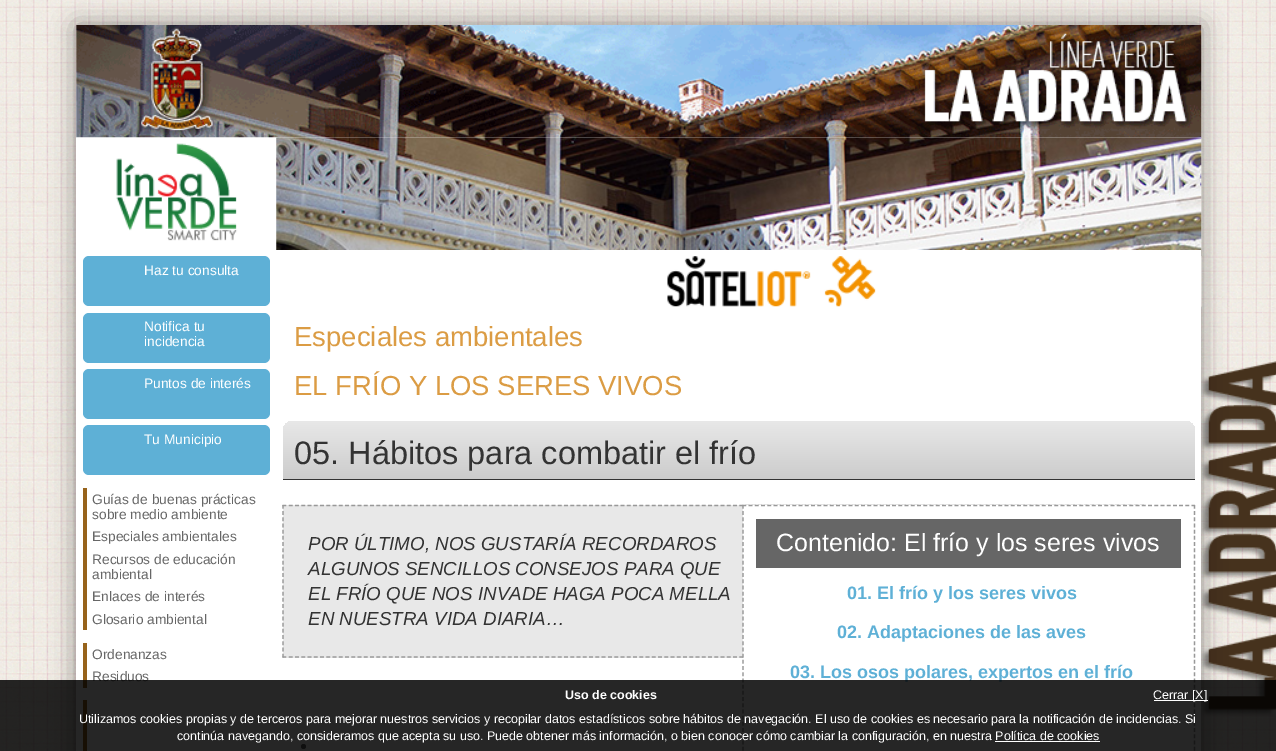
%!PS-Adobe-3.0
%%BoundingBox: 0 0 1276 751
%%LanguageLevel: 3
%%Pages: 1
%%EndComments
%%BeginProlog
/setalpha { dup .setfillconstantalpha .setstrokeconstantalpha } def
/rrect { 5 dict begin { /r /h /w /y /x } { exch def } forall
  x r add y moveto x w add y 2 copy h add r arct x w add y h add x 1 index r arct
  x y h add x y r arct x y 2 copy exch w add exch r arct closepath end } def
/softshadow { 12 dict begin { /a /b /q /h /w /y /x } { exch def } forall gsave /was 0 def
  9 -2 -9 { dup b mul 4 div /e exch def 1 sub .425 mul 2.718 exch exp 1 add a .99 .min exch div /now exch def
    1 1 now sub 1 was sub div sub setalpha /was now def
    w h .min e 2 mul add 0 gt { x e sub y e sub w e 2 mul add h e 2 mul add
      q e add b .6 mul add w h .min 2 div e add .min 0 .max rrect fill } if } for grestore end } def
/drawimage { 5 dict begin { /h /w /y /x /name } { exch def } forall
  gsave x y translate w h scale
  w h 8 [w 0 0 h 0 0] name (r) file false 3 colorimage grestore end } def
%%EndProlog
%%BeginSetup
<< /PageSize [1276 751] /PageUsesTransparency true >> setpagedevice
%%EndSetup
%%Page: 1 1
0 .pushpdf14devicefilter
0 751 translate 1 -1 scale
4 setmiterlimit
1 setgray
0 0 1276 751 rectfill
(images/1.raw) 0 0 1276 751 drawimage
0 setgray
76 25 1125 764 0 12.5 0.4 softshadow
1 setgray
76 25 1125 726 rectfill
(images/2.raw) 76 25 1126 113 drawimage
(images/3.raw) 76 137 202 104 drawimage
(images/4.raw) 276 137 926 113 drawimage
(images/5.raw) 667 256 535 51 drawimage
0.369 0.69 0.839 setrgbcolor
83 256 187 50 6 rrect fill
83 313 187 50 6 rrect fill
83 369 187 50 6 rrect fill
83 425 187 50 6 rrect fill
0.592 0.388 0.106 setrgbcolor
83 488 4 142 rectfill
83 643 4 45 rectfill
83 700 4 51 rectfill
gsave newpath 293 421 moveto 1185 421 lineto 1190.5 421 1195 425.5 1195 431 curveto 1195 479 lineto 283 479 lineto 283 431 lineto 283 425.5 287.5 421 293 421 curveto closepath clip newpath
<< /ShadingType 2 /ColorSpace /DeviceRGB /Coords [739 421 739 479] /Extend [true true] /Function << /FunctionType 2 /Domain [0 1] /C0 [0.91 0.91 0.91] /C1 [0.8 0.8 0.8] /N 1 >> >> shfill grestore
0.2 setgray
283 479 912 1 rectfill
0.91 setgray
283 505 460 153 rectfill
0.6 setgray
1.2 setlinewidth
[3.75 2.51] 0 setdash
newpath 282.5 505.5 moveto 1145 505.5 lineto stroke
newpath 282.5 657 moveto 1145 657 lineto stroke
[3.75 2.45] 0 setdash
newpath 283 505 moveto 283 657.5 lineto stroke
1 setgray
743 505 401 153 rectfill
0.6 setgray
[3.75 2.49] 0 setdash
newpath 742.5 505.5 moveto 1195 505.5 lineto stroke
[3.75 2.45] 0 setdash
newpath 1194.5 505 moveto 1194.5 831 lineto stroke
newpath 743 505 moveto 743 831 lineto stroke
0.4 setgray
756 519 425 49 rectfill
newpath 303.5 746.5 2.5 0 360 arc closepath fill
/LiberationSans-Regular [13.75 0 0 -13.75 0 0] selectfont
1 setgray
144 275 moveto (Haz tu consulta) show
144 331 moveto (Notifica tu) show
144 346 moveto (incidencia) show
144 388 moveto (Puntos de interés) show
144 444 moveto (Tu Municipio) show
0.4 setgray
92 504 moveto (Guías de buenas prácticas) show
92 519 moveto (sobre medio ambiente) show
92 541 moveto (Especiales ambientales) show
92 564 moveto (Recursos de educación) show
92 579 moveto (ambiental) show
92 601 moveto (Enlaces de interés) show
92 624 moveto (Glosario ambiental) show
92 659 moveto (Ordenanzas) show
92 681 moveto (Residuos) show
/LiberationSans-Regular [27.5 0 0 -27.5 0 0] selectfont
0.859 0.612 0.267 setrgbcolor
294 346 moveto (Especiales ambientales) show
294 395 moveto (EL FRÍO Y LOS SERES VIVOS) show
/LiberationSans-Regular [32.5 0 0 -32.5 0 0] selectfont
0.2 setgray
294 464 moveto (05. Hábitos para combatir el frío) show
/LiberationSans-Italic [18.75 0 0 -18.75 0 0] selectfont
308 550 moveto (POR ÚLTIMO, NOS GUSTARÍA RECORDAROS) show
308 575 moveto (ALGUNOS SENCILLOS CONSEJOS PARA QUE) show
308 600 moveto (EL FRÍO QUE NOS INVADE HAGA POCA MELLA) show
308 625 moveto (EN NUESTRA VIDA DIARIA…) show
/LiberationSans-Regular [25 0 0 -25 0 0] selectfont
1 setgray
776 551 moveto (Contenido: El frío y los seres vivos) show
/LiberationSans-Bold [18 0 0 -18 0 0] selectfont
0.369 0.69 0.839 setrgbcolor
847 599 moveto (01. El frío y los seres vivos) show
837 638 moveto (02. Adaptaciones de las aves) show
790 678 moveto (03. Los osos polares, expertos en el frío) show
0.85 setalpha
0 setgray
0 680 1276 71 rectfill
/LiberationSans-Bold [12.5 0 0 -12.5 0 0] selectfont
1 setalpha
1 setgray
565 699 moveto (Uso de cookies) show
1154 700 54 1 rectfill
/LiberationSans-Regular [12.5 0 0 -12.5 0 0] selectfont
1153 699 moveto (Cerrar [X]) show
79 723 moveto (Utilizamos cookies propias y de terceros para mejorar nuestros servicios y recopilar datos estadísticos sobre hábitos de navegación. El uso de cookies es necesario para la notificación de incidencias. Si) show
177 740 moveto (continúa navegando, consideramos que acepta su uso. Puede obtener más información, o bien conocer cómo cambiar la configuración, en nuestra Política de cookies) show
995 741 105 1 rectfill
.poppdf14devicefilter showpage
%%EOF
